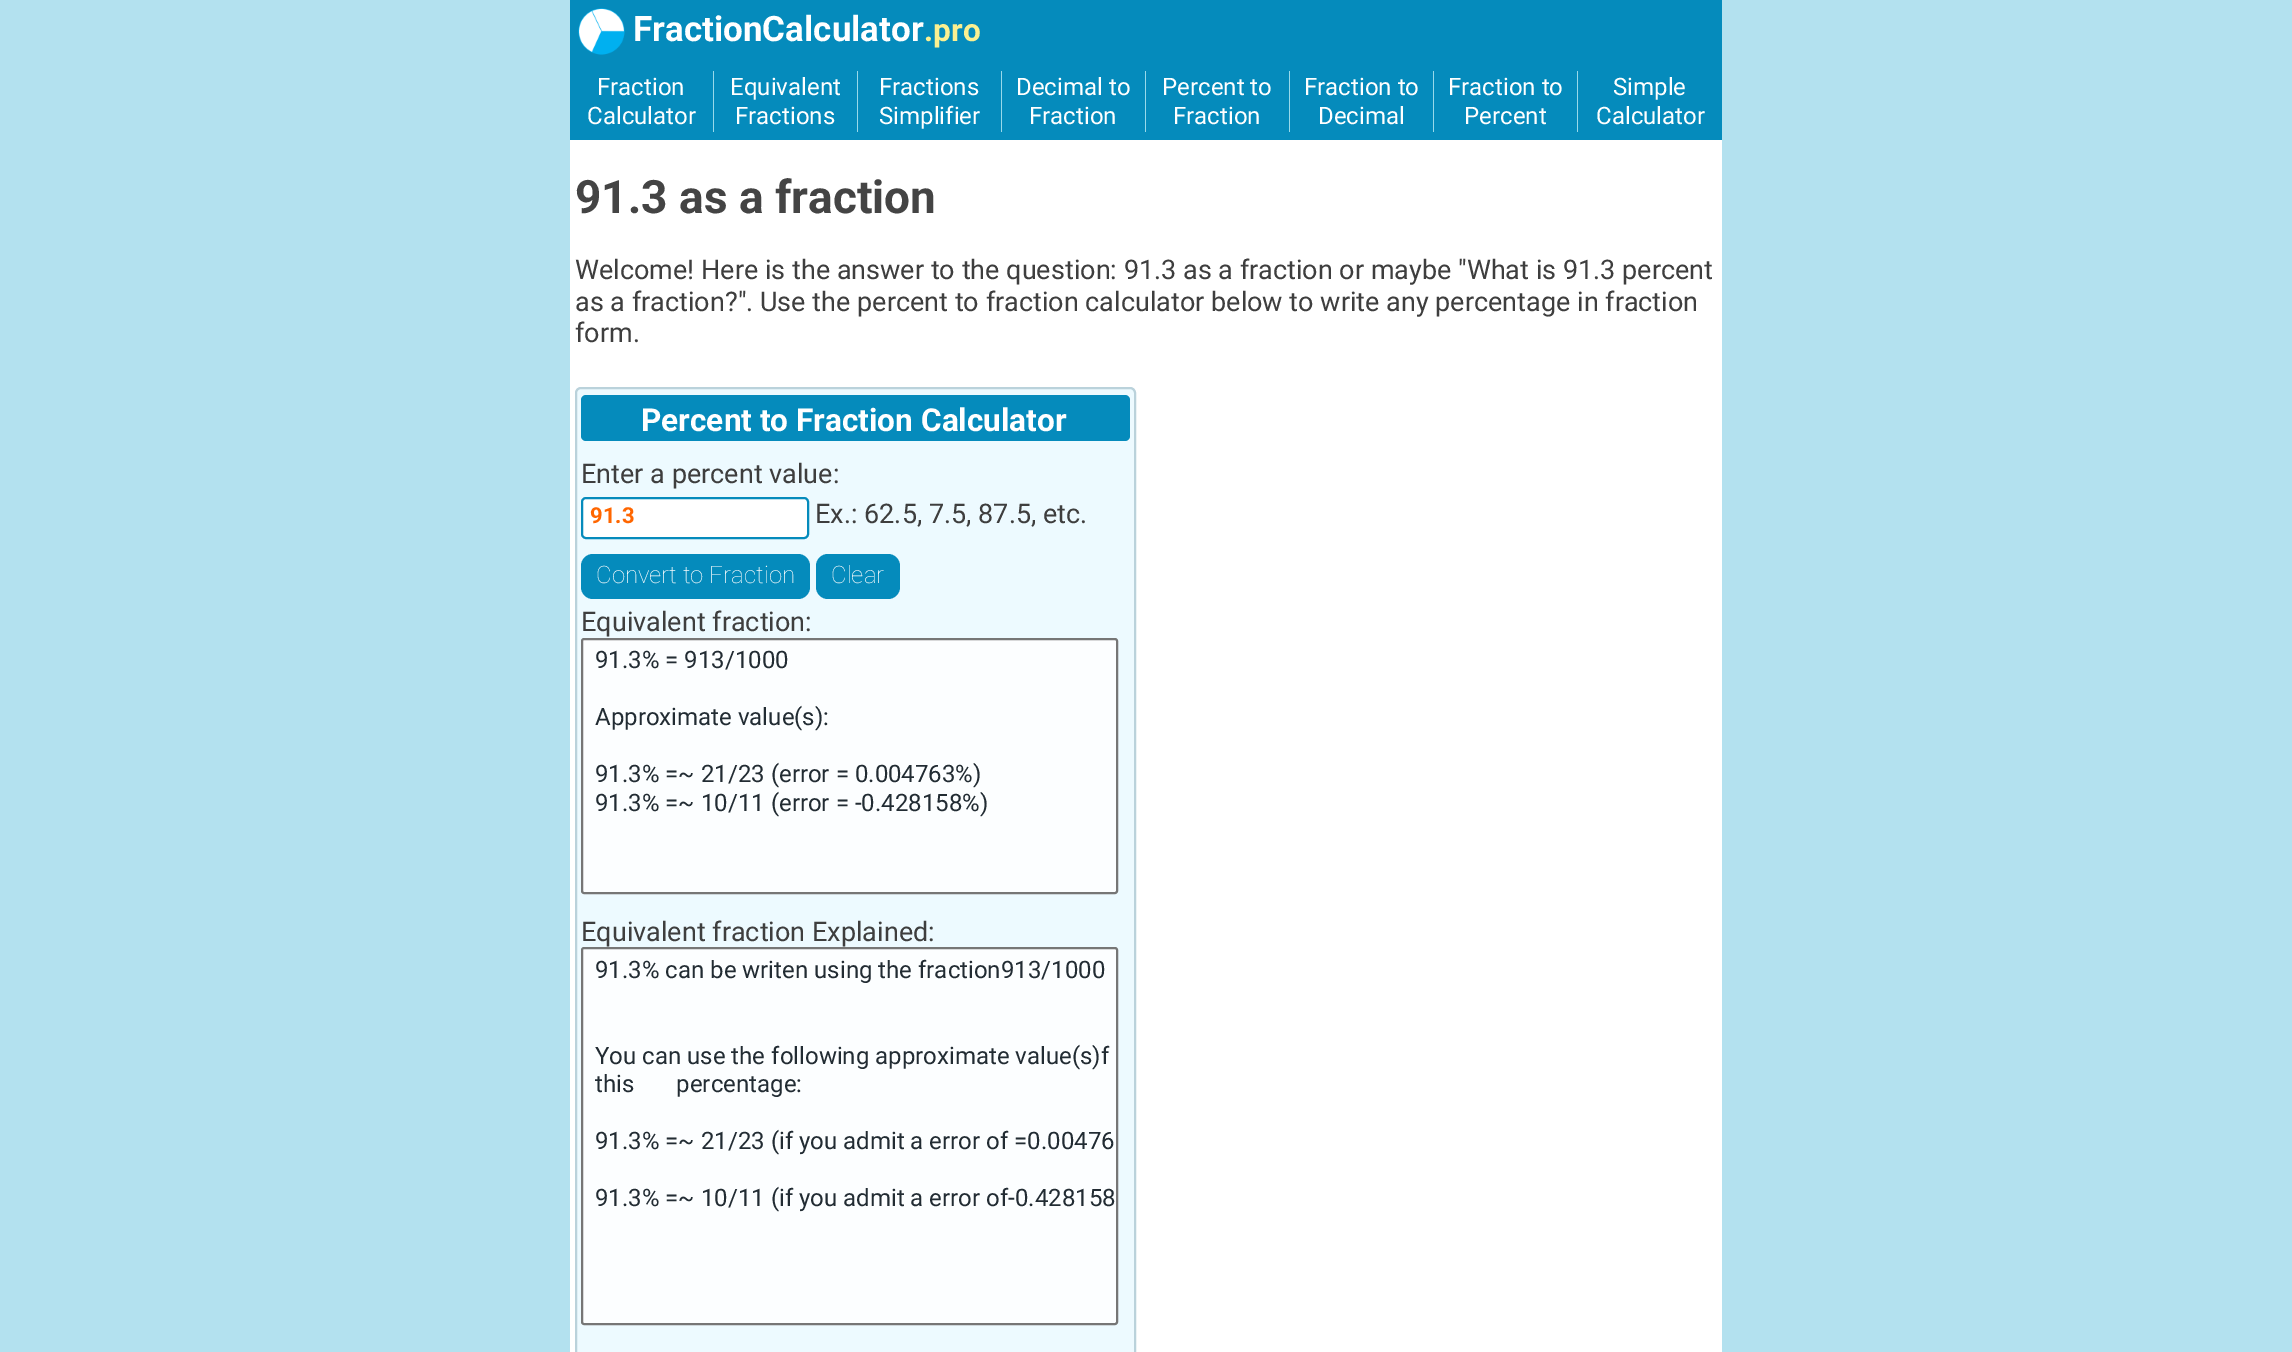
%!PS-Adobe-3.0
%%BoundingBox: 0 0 2292 1352
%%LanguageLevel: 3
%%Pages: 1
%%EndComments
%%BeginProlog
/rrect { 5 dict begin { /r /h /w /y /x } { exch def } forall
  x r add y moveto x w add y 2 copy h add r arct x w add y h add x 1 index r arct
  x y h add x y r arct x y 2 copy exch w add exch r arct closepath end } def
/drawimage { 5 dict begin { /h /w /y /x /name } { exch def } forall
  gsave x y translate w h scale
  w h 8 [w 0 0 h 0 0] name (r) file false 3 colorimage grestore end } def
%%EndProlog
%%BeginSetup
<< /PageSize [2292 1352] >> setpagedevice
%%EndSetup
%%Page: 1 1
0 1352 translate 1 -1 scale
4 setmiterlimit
0.702 0.882 0.937 setrgbcolor
0 0 2292 1352 rectfill
0.02 0.545 0.737 setrgbcolor
570 0 1152 140 rectfill
(images/1.raw) 578 8 47 47 drawimage
0.6 0.851 0.918 setrgbcolor
713 71 1 61 rectfill
857 71 1 61 rectfill
1001 71 1 61 rectfill
1145 71 1 61 rectfill
1289 71 1 61 rectfill
1433 71 1 61 rectfill
1577 71 1 61 rectfill
1 setgray
570 140 1152 1212 rectfill
0.929 0.98 1 setrgbcolor
576 388 559 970 5 rrect gsave fill grestore
0.729 0.824 0.859 setrgbcolor
2 setlinewidth
stroke
0.02 0.545 0.737 setrgbcolor
581 395 549 46 5 rrect fill
1 setgray
582 498 226 40 4 rrect gsave fill grestore
0.02 0.545 0.737 setrgbcolor
stroke
581 554 229 45 12 rrect fill
816 554 84 45 12 rrect fill
0.988 0.996 1 setrgbcolor
582 639 535 254 2 rrect gsave fill grestore
0.463 setgray
stroke
0.988 0.996 1 setrgbcolor
582 948 535 376 2 rrect gsave fill grestore
0.463 setgray
stroke
/Roboto-Bold [35 0 0 -35 0 0] selectfont
1 setgray
633 41 moveto (FractionCalculator) show
/Roboto-Bold [31.6 0 0 -31.6 0 0] selectfont
0.984 0.941 0.569 setrgbcolor
924 41 moveto (.pro) show
/Roboto-Regular [24 0 0 -24 0 0] selectfont
1 setgray
597 95 moveto (Fraction) show
587 124 moveto (Calculator) show
730 95 moveto (Equivalent) show
735 124 moveto (Fractions) show
879 95 moveto (Fractions) show
879 124 moveto (Simplifier) show
1016 95 moveto (Decimal to) show
1029 124 moveto (Fraction) show
1162 95 moveto (Percent to) show
1173 124 moveto (Fraction) show
1304 95 moveto (Fraction to) show
1318 124 moveto (Decimal) show
1448 95 moveto (Fraction to) show
1464 124 moveto (Percent) show
1613 95 moveto (Simple) show
1596 124 moveto (Calculator) show
/Roboto-Bold [46 0 0 -46 0 0] selectfont
0.267 setgray
575 213 moveto (91.3 as a fraction) show
/Roboto-Regular [27 0 0 -27 0 0] selectfont
0.243 setgray
575 279 moveto (Welcome! Here is the answer to the question: 91.3 as a fraction or maybe "What is 91.3 percent) show
575 311 moveto (as a fraction?". Use the percent to fraction calculator below to write any percentage in fraction) show
575 342 moveto (form.) show
/Roboto-Bold [31.6 0 0 -31.6 0 0] selectfont
1 setgray
641 431 moveto (Percent to Fraction Calculator) show
/Roboto-Regular [27 0 0 -27 0 0] selectfont
0.243 setgray
581 483 moveto (Enter a percent value:) show
/Roboto-Bold [22 0 0 -22 0 0] selectfont
1 0.4 0 setrgbcolor
590 523 moveto (91.3) show
/Roboto-Regular [27 0 0 -27 0 0] selectfont
0.243 setgray
815 523 moveto (Ex.: 62.5, 7.5, 87.5, etc.) show
/Roboto-Thin [24 0 0 -24 0 0] selectfont
1 setgray
596 583 moveto (Convert to Fraction) show
831 583 moveto (Clear) show
/Roboto-Regular [27 0 0 -27 0 0] selectfont
0.243 setgray
581 631 moveto (Equivalent fraction:) show
/Roboto-Regular [24 0 0 -24 0 0] selectfont
0.133 0.173 0.2 setrgbcolor
595 668 moveto (91.3% = 913/1000) show
595 725 moveto (Approximate value\(s\):) show
595 782 moveto (91.3% =~ 21/23 \(error = 0.004763%\)) show
595 811 moveto (91.3% =~ 10/11 \(error = -0.428158%\)) show
/Roboto-Regular [27 0 0 -27 0 0] selectfont
0.243 setgray
581 941 moveto (Equivalent fraction Explained:) show
/Roboto-Regular [24 0 0 -24 0 0] selectfont
0.133 0.173 0.2 setrgbcolor
595 978 moveto (91.3% can be writen using the fraction913/1000) show
595 1064 moveto (You can use the following approximate value\(s\)f) show
595 1092 moveto 36 0 32 (this percentage:) widthshow
595 1149 moveto (91.3% =~ 21/23 \(if you admit a error of =0.00476) show
595 1206 moveto (91.3% =~ 10/11 \(if you admit a error of-0.428158) show
showpage
%%EOF
